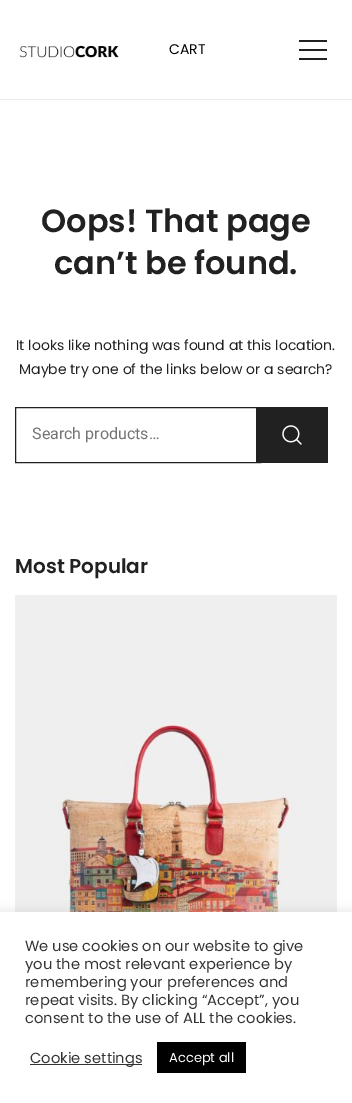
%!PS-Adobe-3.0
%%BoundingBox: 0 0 352 1103
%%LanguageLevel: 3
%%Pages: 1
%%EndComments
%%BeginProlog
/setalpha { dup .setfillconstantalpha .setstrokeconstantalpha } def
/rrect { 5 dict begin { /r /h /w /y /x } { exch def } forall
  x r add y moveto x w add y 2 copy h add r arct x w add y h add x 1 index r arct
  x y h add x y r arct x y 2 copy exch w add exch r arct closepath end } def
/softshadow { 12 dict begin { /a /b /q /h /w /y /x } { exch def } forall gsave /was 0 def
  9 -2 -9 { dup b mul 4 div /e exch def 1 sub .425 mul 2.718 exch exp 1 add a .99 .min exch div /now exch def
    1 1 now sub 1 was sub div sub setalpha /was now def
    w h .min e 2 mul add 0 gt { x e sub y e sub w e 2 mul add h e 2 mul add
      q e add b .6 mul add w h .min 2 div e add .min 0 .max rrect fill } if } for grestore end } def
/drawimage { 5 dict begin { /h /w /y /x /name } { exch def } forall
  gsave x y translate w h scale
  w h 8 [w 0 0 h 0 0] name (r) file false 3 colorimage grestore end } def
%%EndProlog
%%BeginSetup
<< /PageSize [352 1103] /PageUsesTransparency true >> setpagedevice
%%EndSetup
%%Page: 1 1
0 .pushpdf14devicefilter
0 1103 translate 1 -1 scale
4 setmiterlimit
1 setgray
0 0 352 1103 rectfill
0.918 setgray
0 99 352 1 rectfill
(images/1.raw) 19 45 100 13 drawimage
0.129 setgray
299 40 28 2 rectfill
299 49 28 2 rectfill
299 58 28 2 rectfill
15.5 407.5 245 55 rectstroke
256 407 72 56 rectfill
(images/2.raw) 282 425 20 20 drawimage
(images/3.raw) 15 595 322 317 drawimage
0.675 0.671 0.671 setrgbcolor
0 911 352 191 0 5 0.3 softshadow
1 setgray
0 912 352 191 rectfill
0.2 setgray
30 1064 112 1 rectfill
0 setgray
157 1042 89 31 rectfill
/Poppins-Regular [14 0 0 -14 0 0] selectfont
169 54 moveto (CART) show
/Poppins-SemiBold [32 0 0 -32 0 0] selectfont
0.129 setgray
41 232 moveto (Oops! That page) show
54 274 moveto (can’t be found.) show
/Poppins-Regular [14 0 0 -14 0 0] selectfont
16 350 moveto (It looks like nothing was found at this location.) show
19 374 moveto (Maybe try one of the links below or a search?) show
/Roboto-Regular [16 0 0 -16 0 0] selectfont
0.459 setgray
32 439 moveto (Search products…) show
/Poppins-SemiBold [20 0 0 -20 0 0] selectfont
0.129 setgray
15 573 moveto (Most Popular) show
/Poppins-Regular [14.7 0 0 -14.7 0 0] selectfont
0.2 setgray
25 951 moveto (We use cookies on our website to give) show
25 969 moveto (you the most relevant experience by) show
25 987 moveto (remembering your preferences and) show
25 1005 moveto (repeat visits. By clicking “Accept”, you) show
25 1023 moveto (consent to the use of ALL the cookies.) show
30 1063 moveto (Cookie settings) show
/Poppins-Regular [13 0 0 -13 0 0] selectfont
1 setgray
169 1062 moveto (Accept all) show
.poppdf14devicefilter showpage
%%EOF
